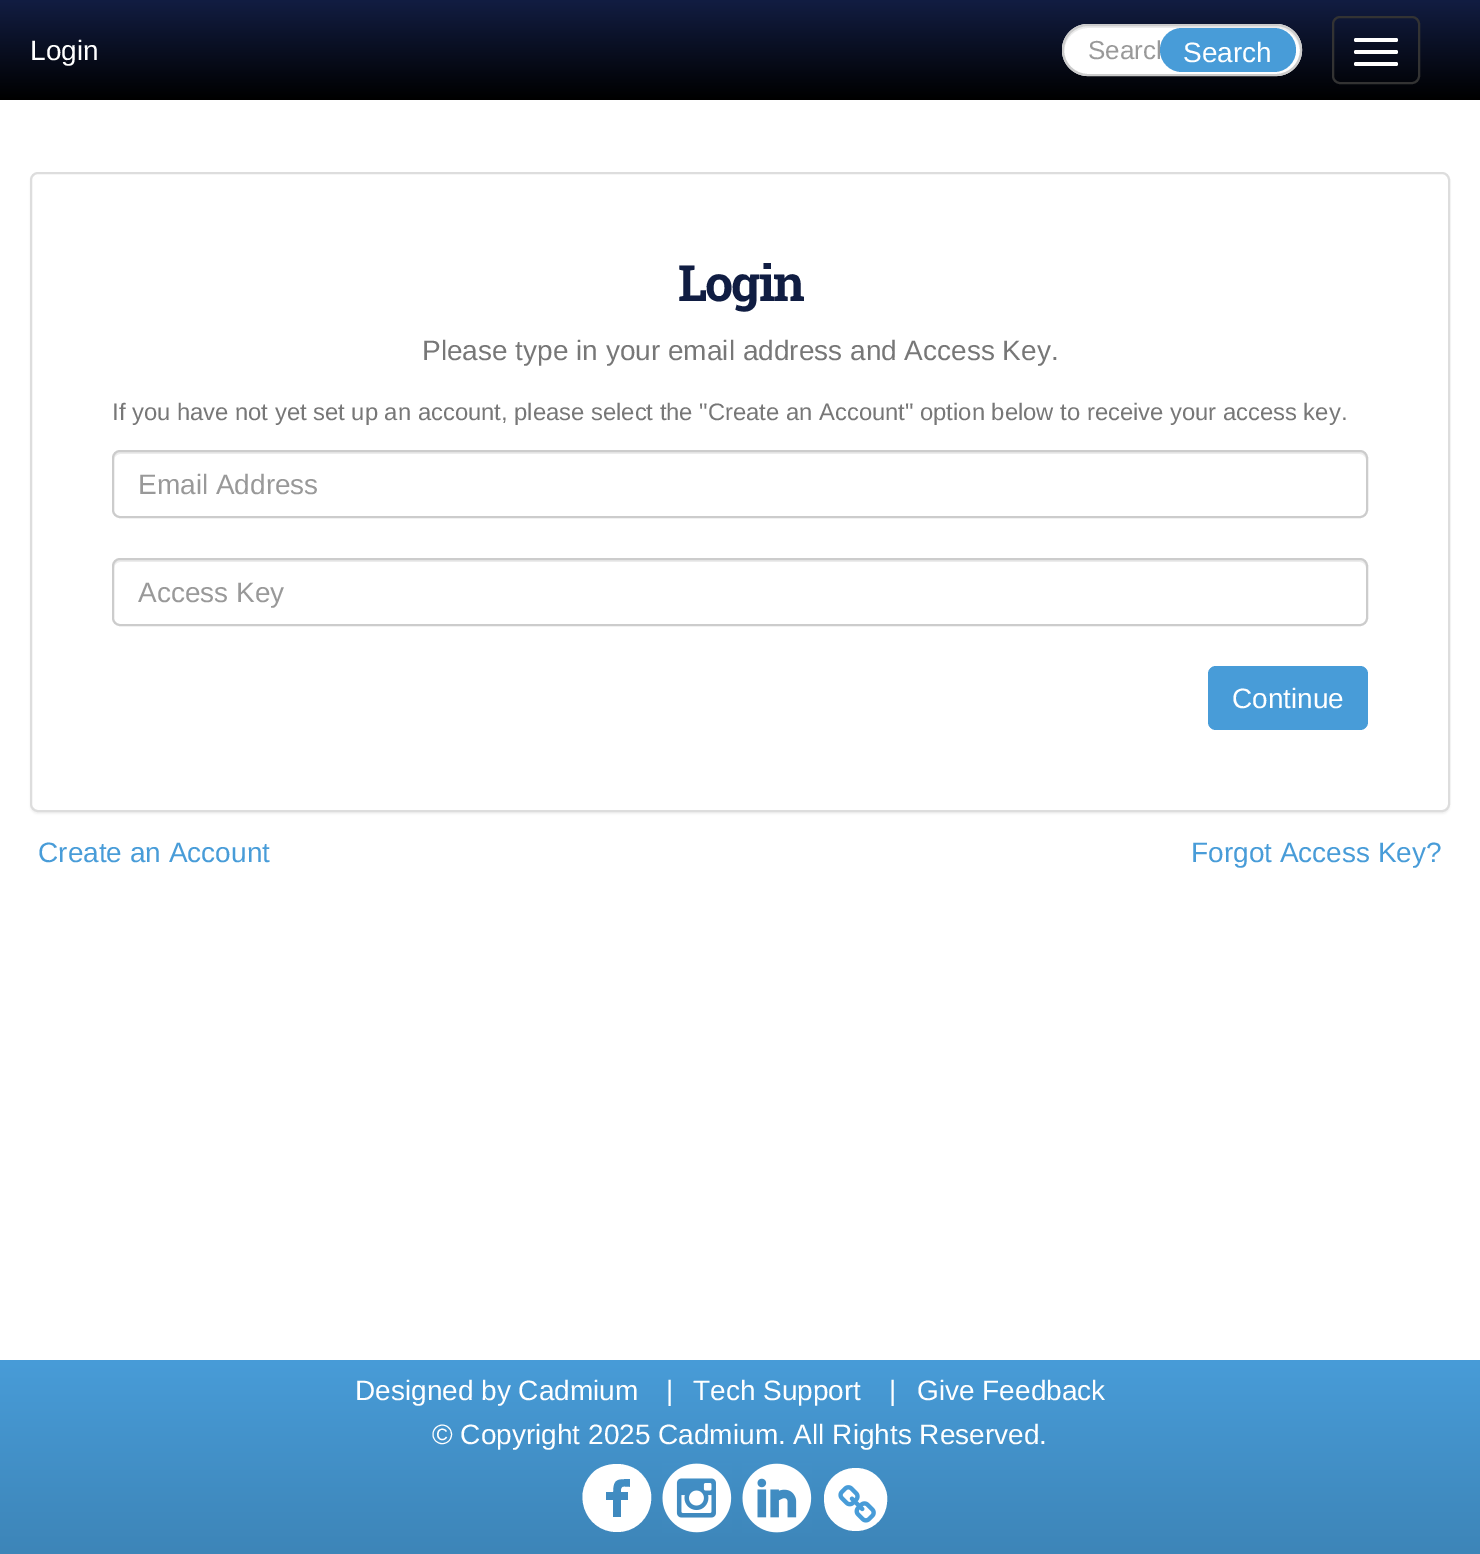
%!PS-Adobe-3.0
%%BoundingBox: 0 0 1480 1554
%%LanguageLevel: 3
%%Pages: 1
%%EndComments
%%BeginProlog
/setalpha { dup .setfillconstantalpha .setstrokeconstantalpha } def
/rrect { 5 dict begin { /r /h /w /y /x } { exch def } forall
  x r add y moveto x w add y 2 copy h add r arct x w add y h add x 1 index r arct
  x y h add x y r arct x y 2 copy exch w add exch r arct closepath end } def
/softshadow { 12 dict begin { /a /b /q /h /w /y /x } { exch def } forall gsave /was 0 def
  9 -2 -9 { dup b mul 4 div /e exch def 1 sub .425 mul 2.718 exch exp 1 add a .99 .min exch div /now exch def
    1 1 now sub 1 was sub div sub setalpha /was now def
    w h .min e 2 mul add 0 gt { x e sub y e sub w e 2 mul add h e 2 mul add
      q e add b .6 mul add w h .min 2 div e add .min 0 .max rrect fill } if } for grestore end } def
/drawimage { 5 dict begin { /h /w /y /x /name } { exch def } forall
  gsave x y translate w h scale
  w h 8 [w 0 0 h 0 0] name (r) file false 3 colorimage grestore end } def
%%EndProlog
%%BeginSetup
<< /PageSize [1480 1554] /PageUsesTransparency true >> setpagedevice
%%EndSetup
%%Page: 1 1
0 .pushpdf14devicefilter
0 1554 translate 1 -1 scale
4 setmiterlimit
1 setgray
0 0 1480 1554 rectfill
gsave newpath 0 0 moveto 1480 0 lineto 1480 100 lineto 0 100 lineto closepath clip newpath
<< /ShadingType 2 /ColorSpace /DeviceRGB /Coords [740 0 740 100] /Extend [true true] /Function << /FunctionType 2 /Domain [0 1] /C0 [0.071 0.114 0.259] /C1 [0 0 0] /N 1 >> >> shfill grestore
1062 24 240 52 26 rrect fill
0.925 setgray
newpath 1088 28 moveto 1276 28 lineto 1289 28 1299 38 1300 51 curveto 1300 50 lineto 1300 37 1289 26 1276 26 curveto 1088 26 lineto 1075 26 1064 37 1064 50 curveto 1064 51 lineto 1065 38 1075 28 1088 28 curveto closepath fill
0.8 setgray
2 setlinewidth
1063 25 238 50 25 rrect stroke
0.2 setgray
1333 17 86 66 7 rrect stroke
1 setgray
1354 38 44 4 2 rrect fill
1354 50 44 4 2 rrect fill
1354 62 44 4 2 rrect fill
0 setgray
30 174 1420 640 8 1 0.05 softshadow
1 setgray
31 173 1418 638 7 rrect gsave fill grestore
0.867 setgray
stroke
0.925 setgray
newpath 120 454 moveto 1360 454 lineto 1363 454 1366 457 1366 460 curveto 1366 458 lineto 1366 455 1363 452 1360 452 curveto 120 452 lineto 117 452 114 455 114 458 curveto 114 460 lineto 114 457 117 454 120 454 curveto closepath fill
0.8 setgray
113 451 1254 66 7 rrect stroke
0.925 setgray
newpath 120 562 moveto 1360 562 lineto 1363 562 1366 565 1366 568 curveto 1366 566 lineto 1366 563 1363 560 1360 560 curveto 120 560 lineto 117 560 114 563 114 566 curveto 114 568 lineto 114 565 117 562 120 562 curveto closepath fill
0.8 setgray
113 559 1254 66 7 rrect stroke
0.282 0.612 0.847 setrgbcolor
1208 666 160 64 8 rrect fill
gsave newpath 0 1360 moveto 1480 1360 lineto 1480 1554 lineto 0 1554 lineto closepath clip newpath
<< /ShadingType 2 /ColorSpace /DeviceRGB /Coords [740 1360 740 1554] /Extend [true true] /Function << /FunctionType 2 /Domain [0 1] /C0 [0.282 0.612 0.847] /C1 [0.239 0.522 0.722] /N 1 >> >> shfill grestore
1 setgray
newpath 617 1464 moveto 624 1464 631 1466 637 1470 curveto 664 1490 650 1532 617 1532 curveto 584 1532 570 1490 596 1470 curveto 602 1466 609 1464 617 1464 curveto closepath 630 1479 moveto 618 1479 613 1478 613 1492 curveto 606 1492 lineto 606 1500 lineto 613 1500 lineto 613 1517 lineto 621 1517 lineto 621 1500 lineto 628 1500 lineto 628 1492 lineto 621 1492 lineto 621 1485 624 1487 630 1487 curveto closepath fill
(images/1.raw) 662 1463 70 70 drawimage
(images/2.raw) 742 1463 70 70 drawimage
newpath 883 1484 moveto 886 1489 888 1495 887 1502 curveto 885 1533 844 1542 828 1515 curveto 825 1510 824 1504 824 1497 curveto 826 1466 868 1457 883 1484 curveto closepath fill
(images/3.raw) 838 1485 38 38 drawimage
/LiberationSans-Regular [28 0 0 -28 0 0] selectfont
30 60 moveto (Login) show
/LiberationSans-Regular [26 0 0 -26 0 0] selectfont
0.6 setgray
1088 59 moveto (Search) show
0.282 0.612 0.847 setrgbcolor
1160 28 136 44 22 rrect fill
/LiberationSans-Regular [28 0 0 -28 0 0] selectfont
1 setgray
1183 62 moveto (Search) show
/RobotoSlab-Bold [50 0 0 -50 0 0] selectfont
0.063 0.114 0.259 setrgbcolor
678 301 moveto -2 0 (Login) ashow
/LiberationSans-Regular [28 0 0 -28 0 0] selectfont
0.467 setgray
422 360 moveto (Please type in your email address and Access Key.) show
/LiberationSans-Regular [23.8 0 0 -23.8 0 0] selectfont
112 420 moveto (If you have not yet set up an account, please select the "Create an Account" option below to receive your access key.) show
/LiberationSans-Regular [28 0 0 -28 0 0] selectfont
0.6 setgray
138 494 moveto (Email Address) show
138 602 moveto (Access Key) show
1 setgray
1232 708 moveto (Continue) show
0.282 0.612 0.847 setrgbcolor
38 862 moveto (Create an Account) show
1191 862 moveto (Forgot Access Key?) show
1 setgray
355 1400 moveto (Designed by Cadmium) show
666 1400 moveto (|) show
693 1400 moveto (Tech Support) show
889 1400 moveto (|) show
917 1400 moveto (Give Feedback) show
432 1444 moveto (© Copyright 2025 Cadmium. All Rights Reserved.) show
.poppdf14devicefilter showpage
%%EOF
